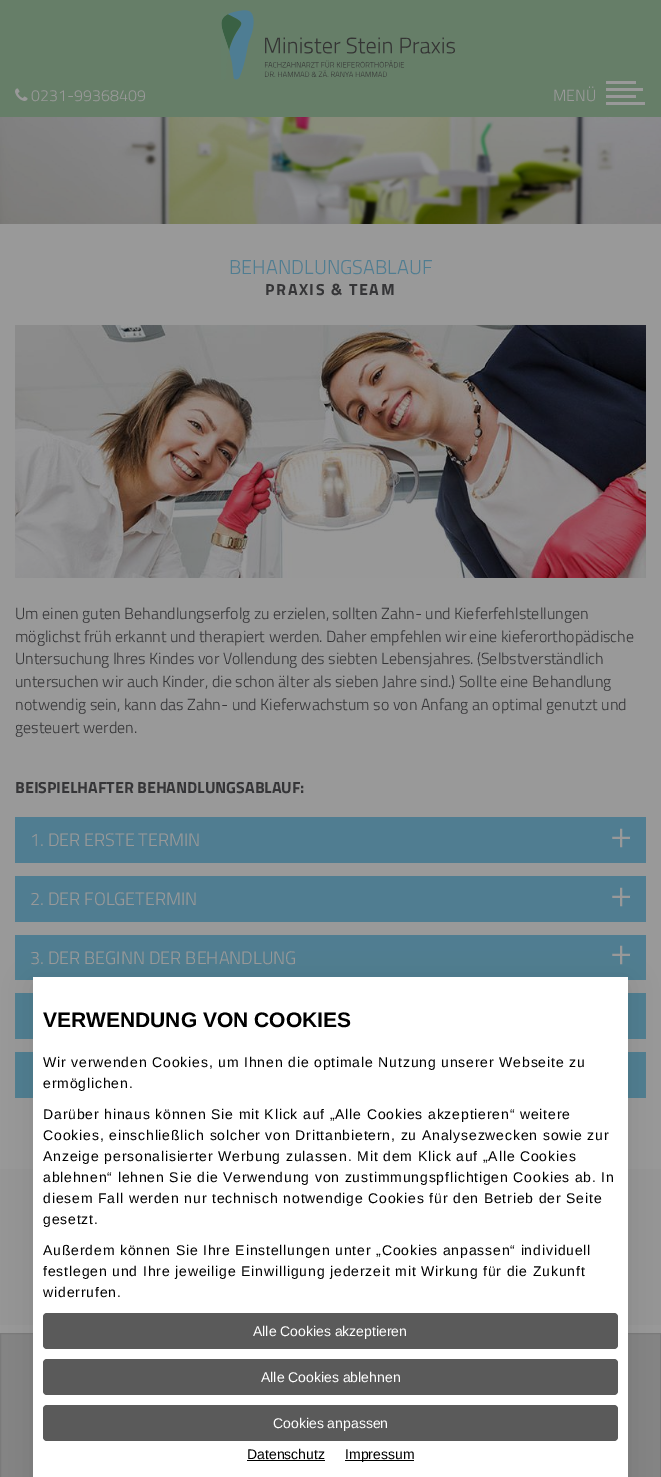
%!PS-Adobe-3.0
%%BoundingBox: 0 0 661 1477
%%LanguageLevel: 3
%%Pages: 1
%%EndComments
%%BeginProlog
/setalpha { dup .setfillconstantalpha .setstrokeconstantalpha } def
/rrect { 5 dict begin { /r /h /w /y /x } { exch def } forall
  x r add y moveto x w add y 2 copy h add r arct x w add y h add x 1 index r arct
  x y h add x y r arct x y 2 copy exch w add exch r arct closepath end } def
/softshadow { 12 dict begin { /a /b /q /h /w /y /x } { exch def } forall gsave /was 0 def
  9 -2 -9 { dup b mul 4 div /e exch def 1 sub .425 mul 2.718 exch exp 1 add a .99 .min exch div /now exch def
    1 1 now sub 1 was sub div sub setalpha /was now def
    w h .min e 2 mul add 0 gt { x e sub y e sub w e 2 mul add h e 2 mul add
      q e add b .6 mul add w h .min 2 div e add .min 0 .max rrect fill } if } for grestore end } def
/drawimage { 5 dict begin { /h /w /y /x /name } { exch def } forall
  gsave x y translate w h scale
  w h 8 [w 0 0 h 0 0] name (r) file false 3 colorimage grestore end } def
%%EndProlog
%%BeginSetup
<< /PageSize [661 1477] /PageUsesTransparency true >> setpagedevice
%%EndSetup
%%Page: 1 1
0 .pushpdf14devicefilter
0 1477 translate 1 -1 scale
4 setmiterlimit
0.6 setgray
0 0 661 1477 rectfill
0.4 0.494 0.408 setrgbcolor
0 0 661 117 rectfill
(images/1.raw) 221 10 234 70 drawimage
(images/2.raw) 15 88 13 13 drawimage
0.6 setgray
606 81 30 3 rectfill
606 88 37 3 rectfill
606 95 30 3 rectfill
606 102 39 3 rectfill
(images/3.raw) 0 117 661 107 drawimage
(images/4.raw) 15 325 631 253 drawimage
0.314 0.49 0.569 setrgbcolor
15 817 631 46 rectfill
15 876 631 46 rectfill
15 935 631 45 rectfill
15 993 631 46 rectfill
15 1052 631 46 rectfill
0.588 setgray
0 1169 661 156 rectfill
0.522 setgray
newpath 0.5 1333.5 moveto 660.5 1333.5 lineto 660.5 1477.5 lineto 0.5 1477.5 lineto closepath gsave fill grestore
0.478 setgray
stroke
0 setgray
33 983 595 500 0 14 0.1 softshadow
1 setgray
33 977 595 500 rectfill
0.353 setgray
43 1313 575 36 4 rrect fill
43 1359 575 36 4 rrect fill
43 1405 575 36 4 rrect fill
0 setgray
247 1460 78 1 rectfill
345 1460 69 1 rectfill
/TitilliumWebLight-Light [16 0 0 -16 0 0] selectfont
0.6 setgray
31 101 moveto (0231-99368409) show
553 101 moveto (MENÜ) show
/TitilliumWebLight-Light [20 0 0 -20 0 0] selectfont
0.314 0.49 0.569 setrgbcolor
229 274 moveto (BEHANDLUNGSABLAUF) show
/TitilliumWeb-Bold [16 0 0 -16 0 0] selectfont
0.208 0.208 0.216 setrgbcolor
265 295 moveto 1.6 0 (PRAXIS & TEAM) ashow
/TitilliumWebLight-Light [16 0 0 -16 0 0] selectfont
15 619 moveto (Um einen guten Behandlungserfolg zu erzielen, sollten Zahn- und Kieferfehlstellungen) show
15 642 moveto (möglichst früh erkannt und therapiert werden. Daher empfehlen wir eine kieferorthopädische) show
15 664 moveto (Untersuchung Ihres Kindes vor Vollendung des siebten Lebensjahres. \(Selbstverständlich) show
15 687 moveto (untersuchen wir auch Kinder, die schon älter als sieben Jahre sind.\) Sollte eine Behandlung) show
15 710 moveto (notwendig sein, kann das Zahn- und Kieferwachstum so von Anfang an optimal genutzt und) show
15 733 moveto (gesteuert werden.) show
/TitilliumWeb-Bold [16 0 0 -16 0 0] selectfont
15 793 moveto (BEISPIELHAFTER BEHANDLUNGSABLAUF:) show
/TitilliumWebLight-Light [18 0 0 -18 0 0] selectfont
0.6 setgray
30 846 moveto (1. DER ERSTE TERMIN) show
/TitilliumWebLight-Light [40 0 0 -40 0 0] selectfont
610 848 moveto (+) show
/TitilliumWebLight-Light [18 0 0 -18 0 0] selectfont
30 905 moveto (2. DER FOLGETERMIN) show
/TitilliumWebLight-Light [40 0 0 -40 0 0] selectfont
610 907 moveto (+) show
/TitilliumWebLight-Light [18 0 0 -18 0 0] selectfont
30 964 moveto (3. DER BEGINN DER BEHANDLUNG) show
/TitilliumWebLight-Light [40 0 0 -40 0 0] selectfont
610 965 moveto (+) show
/LiberationSans-Bold [21 0 0 -21 0 0] selectfont
0 setgray
43 1027 moveto (VERWENDUNG VON COOKIES) show
/LiberationSans-Regular [14 0 0 -14 0 0] selectfont
43 1067 moveto 0.85 0 (Wir verwenden Cookies, um Ihnen die optimale Nutzung unserer Webseite zu) ashow
43 1088 moveto 0.85 0 (ermöglichen.) ashow
43 1119 moveto 0.85 0 (Darüber hinaus können Sie mit Klick auf „Alle Cookies akzeptieren“ weitere) ashow
43 1140 moveto 0.85 0 (Cookies, einschließlich solcher von Drittanbietern, zu Analysezwecken sowie zur) ashow
43 1161 moveto 0.85 0 (Anzeige personalisierter Werbung zulassen. Mit dem Klick auf „Alle Cookies) ashow
43 1182 moveto 0.85 0 (ablehnen“ lehnen Sie die Verwendung von zustimmungspflichtigen Cookies ab. In) ashow
43 1203 moveto 0.85 0 (diesem Fall werden nur technisch notwendige Cookies für den Betrieb der Seite) ashow
43 1224 moveto 0.85 0 (gesetzt.) ashow
43 1255 moveto 0.85 0 (Außerdem können Sie Ihre Einstellungen unter „Cookies anpassen“ individuell) ashow
43 1276 moveto 0.85 0 (festlegen und Ihre jeweilige Einwilligung jederzeit mit Wirkung für die Zukunft) ashow
43 1297 moveto 0.85 0 (widerrufen.) ashow
1 setgray
253 1336 moveto (Alle Cookies akzeptieren) show
261 1382 moveto (Alle Cookies ablehnen) show
273 1428 moveto (Cookies anpassen) show
0 setgray
247 1459 moveto (Datenschutz) show
345 1459 moveto (Impressum) show
.poppdf14devicefilter showpage
%%EOF
